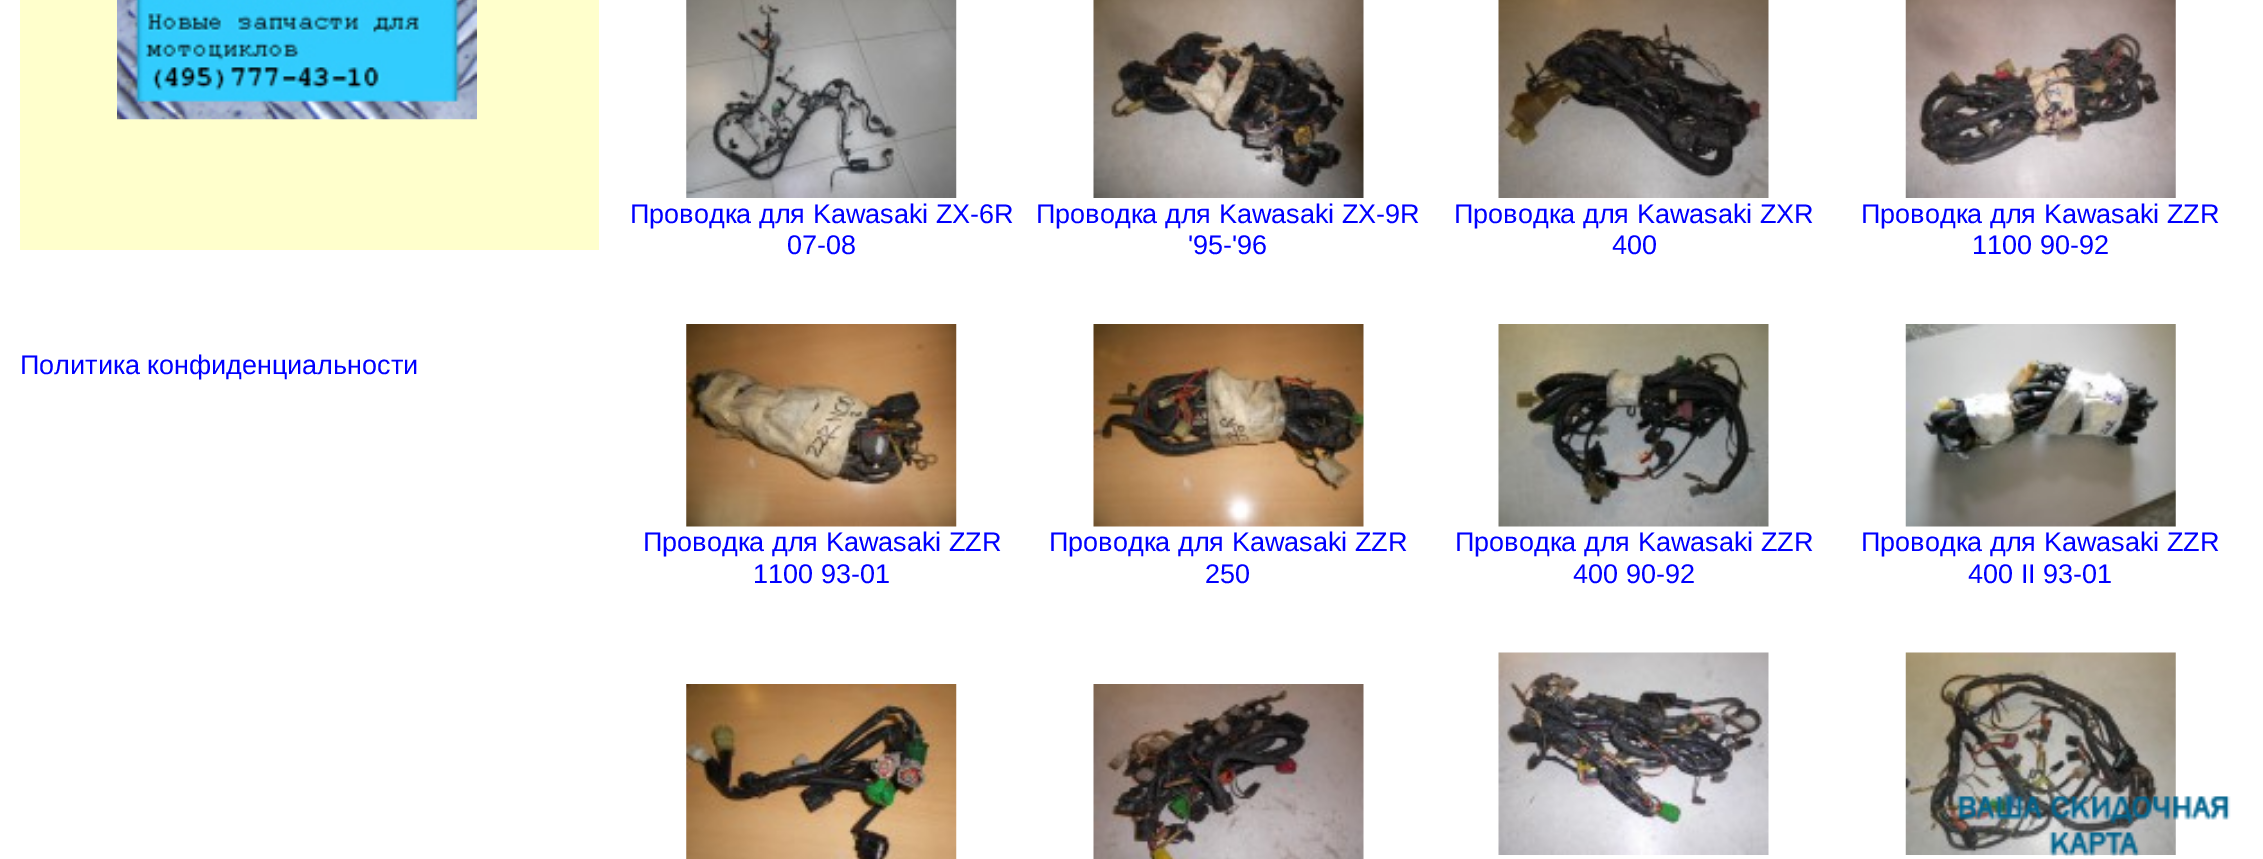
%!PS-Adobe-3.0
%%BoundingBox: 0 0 2263 859
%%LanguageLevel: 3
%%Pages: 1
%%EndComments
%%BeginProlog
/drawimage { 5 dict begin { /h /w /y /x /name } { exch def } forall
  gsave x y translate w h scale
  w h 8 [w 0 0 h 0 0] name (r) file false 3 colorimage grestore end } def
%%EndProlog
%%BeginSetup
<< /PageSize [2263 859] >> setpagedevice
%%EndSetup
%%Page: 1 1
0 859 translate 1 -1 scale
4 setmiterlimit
1 setgray
0 0 2263 859 rectfill
1 1 0.8 setrgbcolor
20 0 579 250 rectfill
(images/1.raw) 117 0 360 120 drawimage
(images/2.raw) 686 0 271 198 drawimage
(images/3.raw) 1093 0 271 198 drawimage
(images/4.raw) 1498 0 271 198 drawimage
(images/5.raw) 1905 0 271 198 drawimage
(images/6.raw) 686 324 271 203 drawimage
(images/7.raw) 1093 324 271 203 drawimage
(images/8.raw) 1498 324 271 203 drawimage
(images/9.raw) 1905 324 271 203 drawimage
(images/10.raw) 686 684 271 175 drawimage
(images/11.raw) 1093 684 271 175 drawimage
(images/12.raw) 1498 652 271 203 drawimage
(images/13.raw) 1905 652 271 203 drawimage
(images/14.raw) 1957 796 274 60 drawimage
/LiberationSans-Regular [27 0 0 -27 0 0] selectfont
0 0 1 setrgbcolor
20 374 moveto (Политика конфиденциальности) show
630 223 moveto (Проводка для Kawasaki ZX-6R) show
787 254 moveto (07-08) show
1036 223 moveto (Проводка для Kawasaki ZX-9R) show
1188 254 moveto ('95-'96) show
1454 223 moveto (Проводка для Kawasaki ZXR) show
1612 254 moveto (400) show
1861 223 moveto (Проводка для Kawasaki ZZR) show
1972 254 moveto (1100 90-92) show
643 551 moveto (Проводка для Kawasaki ZZR) show
753 583 moveto (1100 93-01) show
1049 551 moveto (Проводка для Kawasaki ZZR) show
1205 583 moveto (250) show
1455 551 moveto (Проводка для Kawasaki ZZR) show
1573 583 moveto (400 90-92) show
1861 551 moveto (Проводка для Kawasaki ZZR) show
1968 583 moveto (400 II 93-01) show
showpage
%%EOF
